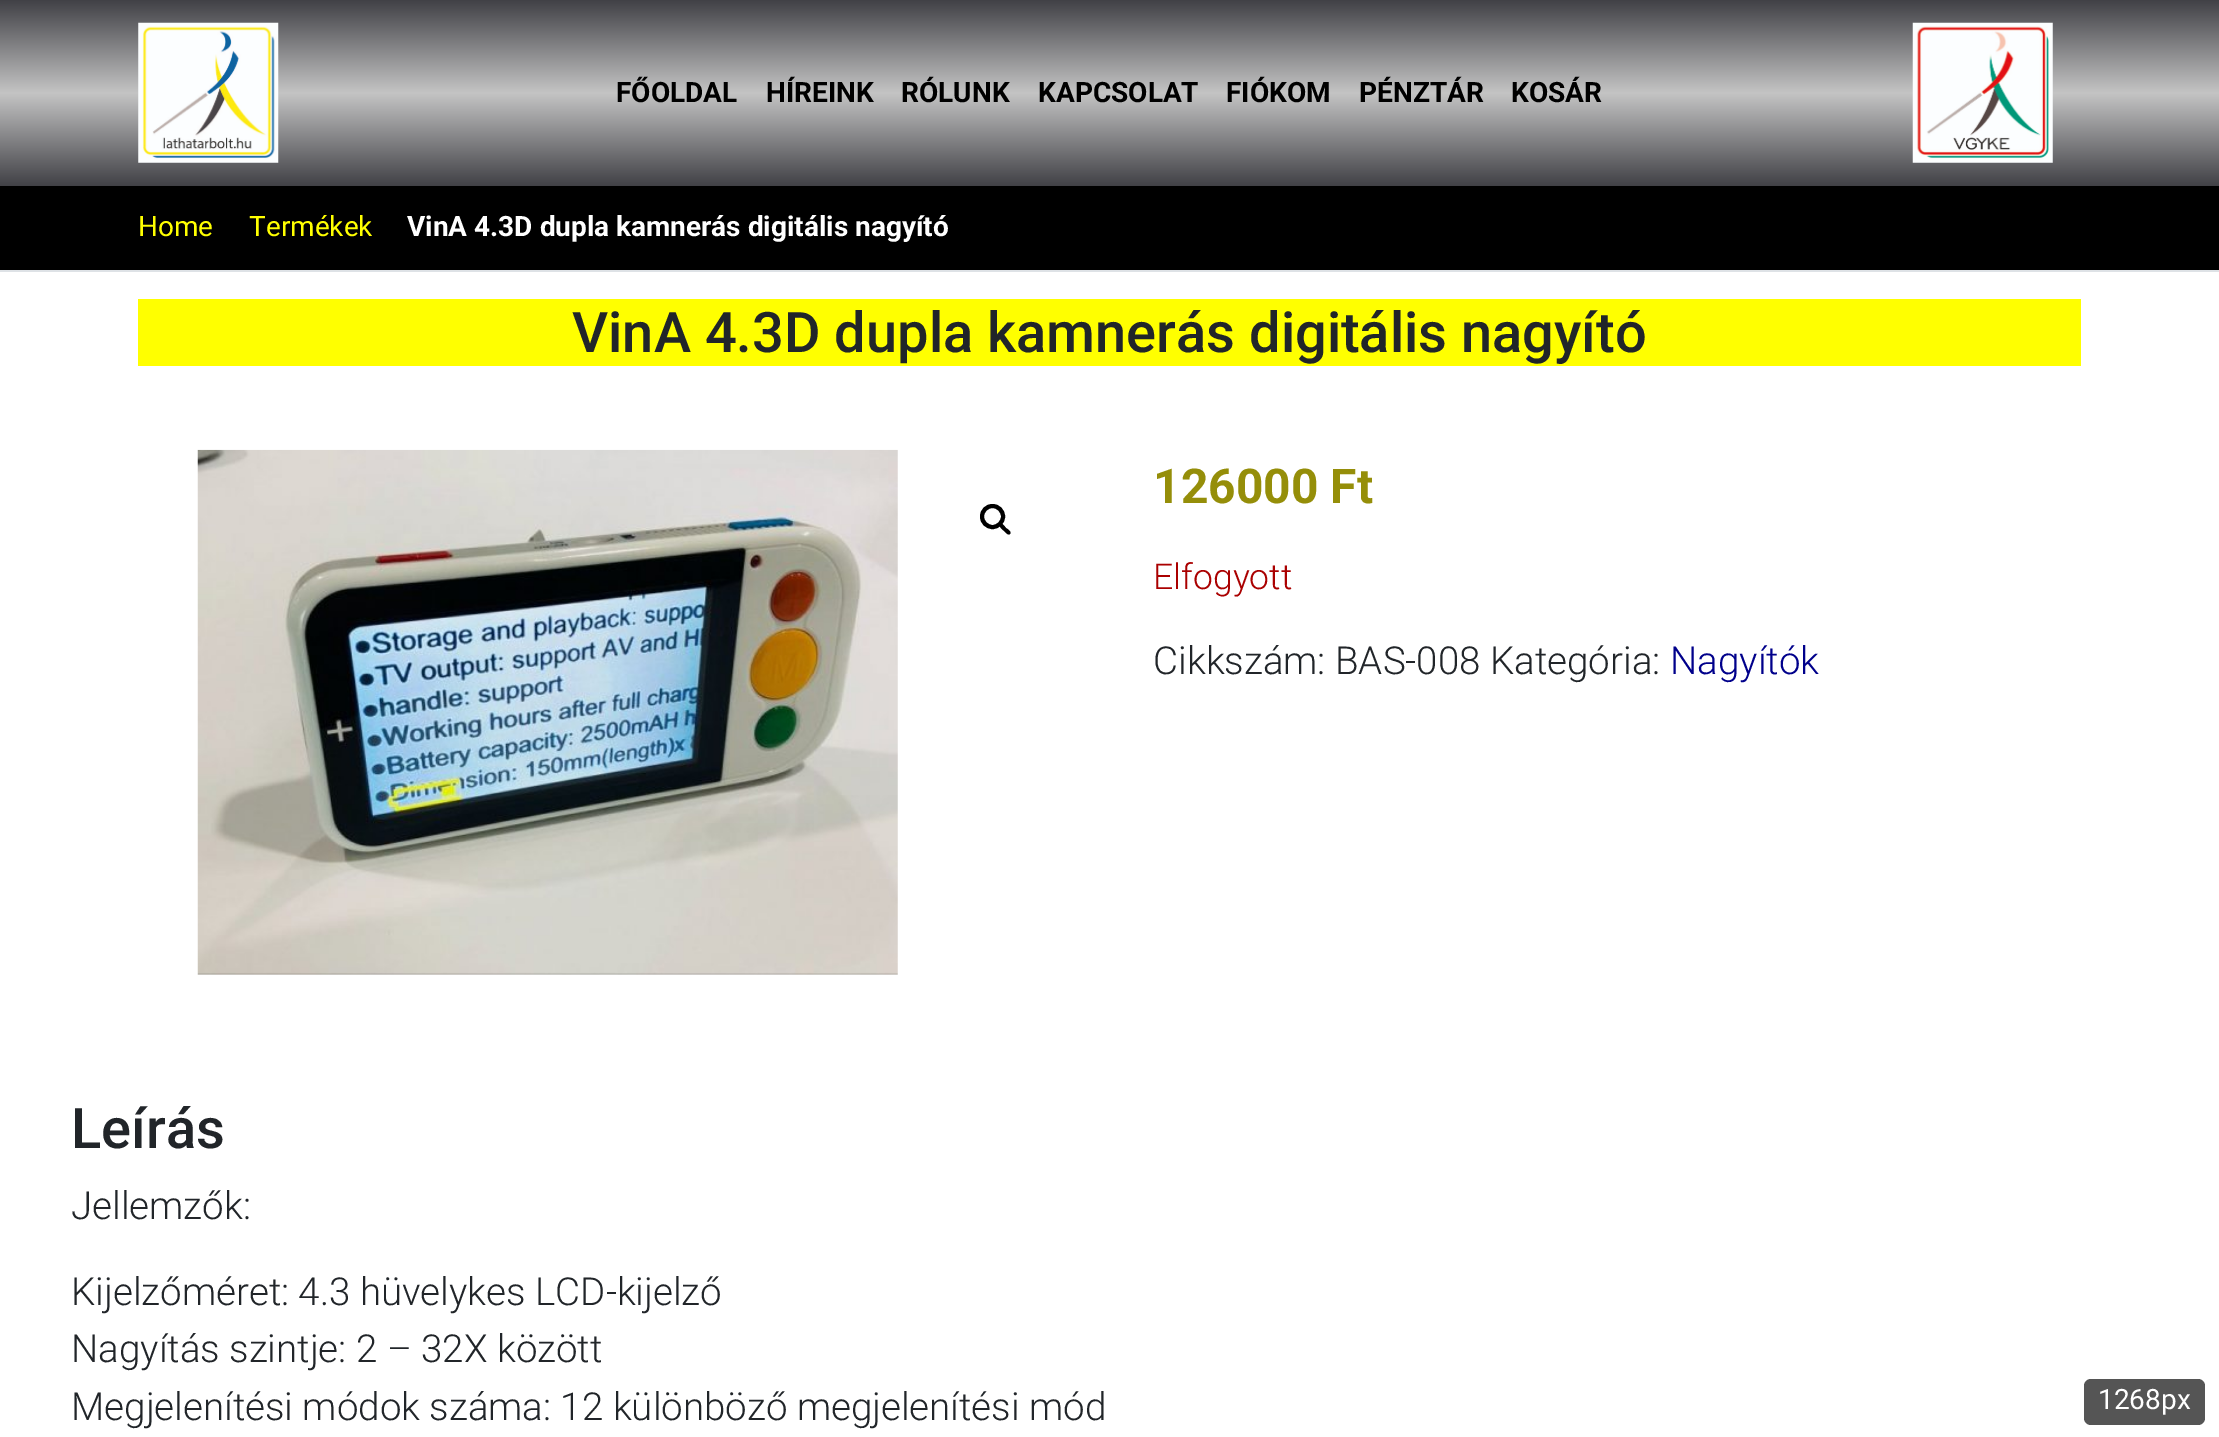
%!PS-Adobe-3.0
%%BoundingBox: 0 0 2219 1437
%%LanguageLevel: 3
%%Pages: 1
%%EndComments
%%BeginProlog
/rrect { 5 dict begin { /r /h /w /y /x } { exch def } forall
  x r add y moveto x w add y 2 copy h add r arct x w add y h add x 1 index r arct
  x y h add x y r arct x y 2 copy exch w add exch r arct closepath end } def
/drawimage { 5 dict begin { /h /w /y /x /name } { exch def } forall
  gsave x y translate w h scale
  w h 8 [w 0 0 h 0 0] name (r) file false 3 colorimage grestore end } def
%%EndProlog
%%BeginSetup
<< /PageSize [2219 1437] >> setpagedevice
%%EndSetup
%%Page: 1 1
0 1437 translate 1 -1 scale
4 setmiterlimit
1 setgray
0 0 2219 1437 rectfill
gsave newpath 0 0 moveto 2219 0 lineto 2219 186 lineto 0 186 lineto closepath clip newpath
<< /ShadingType 2 /ColorSpace /DeviceRGB /Coords [1110 0 1110 186] /Extend [true true] /Function << /FunctionType 3 /Domain [0 1] /Functions [<< /FunctionType 2 /Domain [0 1] /C0 [0.255 0.255 0.275] /C1 [0.769 0.769 0.769] /N 1 >> << /FunctionType 2 /Domain [0 1] /C0 [0.769 0.769 0.769] /C1 [0.255 0.255 0.275] /N 1 >>] /Bounds [0.5] /Encode [0 1 0 1] >> >> shfill grestore
(images/1.raw) 138 22 141 141 drawimage
(images/2.raw) 1912 22 141 141 drawimage
0 setgray
0 186 2219 84 rectfill
0.871 0.886 0.902 setrgbcolor
0 270 2219 2 rectfill
1 1 0 setrgbcolor
138 299 1943 67 rectfill
(images/3.raw) 197 449 701 526 drawimage
0 setgray
4 setlinewidth
newpath 992.5 516.5 10.5 0 360 arc closepath stroke
newpath 1000 524 moveto 1002 522 1005 527 1006 528 curveto 1007.5 529 1012 532 1010 534 curveto 1008 536 1005 531.5 1003.5 530.5 curveto 1002.5 529.5 998 526 1000 524 curveto closepath fill
0.333 setgray
2084 1379 121 46 7 rrect fill
/Roboto-Bold [28 0 0 -28 0 0] selectfont
0 setgray
616 102 moveto (FŐOLDAL) show
766 102 moveto (HÍREINK) show
901 102 moveto (RÓLUNK) show
1038 102 moveto (KAPCSOLAT) show
1226 102 moveto (FIÓKOM) show
1359 102 moveto (PÉNZTÁR) show
1511 102 moveto (KOSÁR) show
/Roboto-Regular [28 0 0 -28 0 0] selectfont
1 1 0 setrgbcolor
138 236 moveto (Home) show
249 236 moveto (Termékek) show
/Roboto-Bold [28 0 0 -28 0 0] selectfont
1 setgray
407 236 moveto (VinA 4.3D dupla kamnerás digitális nagyító) show
/Roboto-Medium [56 0 0 -56 0 0] selectfont
0.129 0.145 0.161 setrgbcolor
572 352 moveto (VinA 4.3D dupla kamnerás digitális nagyító) show
/Roboto-Bold [48 0 0 -48 0 0] selectfont
0.584 0.557 0.035 setrgbcolor
1153 503 moveto (126000 Ft) show
/Roboto-Light [35.5 0 0 -35.5 0 0] selectfont
0.667 0 0 setrgbcolor
1153 589 moveto (Elfogyott) show
/Roboto-Light [38.5 0 0 -38.5 0 0] selectfont
0.129 0.145 0.161 setrgbcolor
1153 674 moveto (Cikkszám: BAS-008 Kategória:) show
0 0 0.545 setrgbcolor
1670 674 moveto (Nagyítók) show
/Roboto-Medium [56 0 0 -56 0 0] selectfont
0.129 0.145 0.161 setrgbcolor
71 1148 moveto (Leírás) show
/Roboto-Light [38.5 0 0 -38.5 0 0] selectfont
71 1219 moveto (Jellemzők:) show
71 1305 moveto (Kijelzőméret: 4.3 hüvelykes LCD-kijelző) show
71 1362 moveto (Nagyítás szintje: 2 – 32X között) show
71 1420 moveto (Megjelenítési módok száma: 12 különböző megjelenítési mód) show
/Roboto-Regular [28 0 0 -28 0 0] selectfont
1 setgray
2098 1409 moveto (1268px) show
showpage
%%EOF
